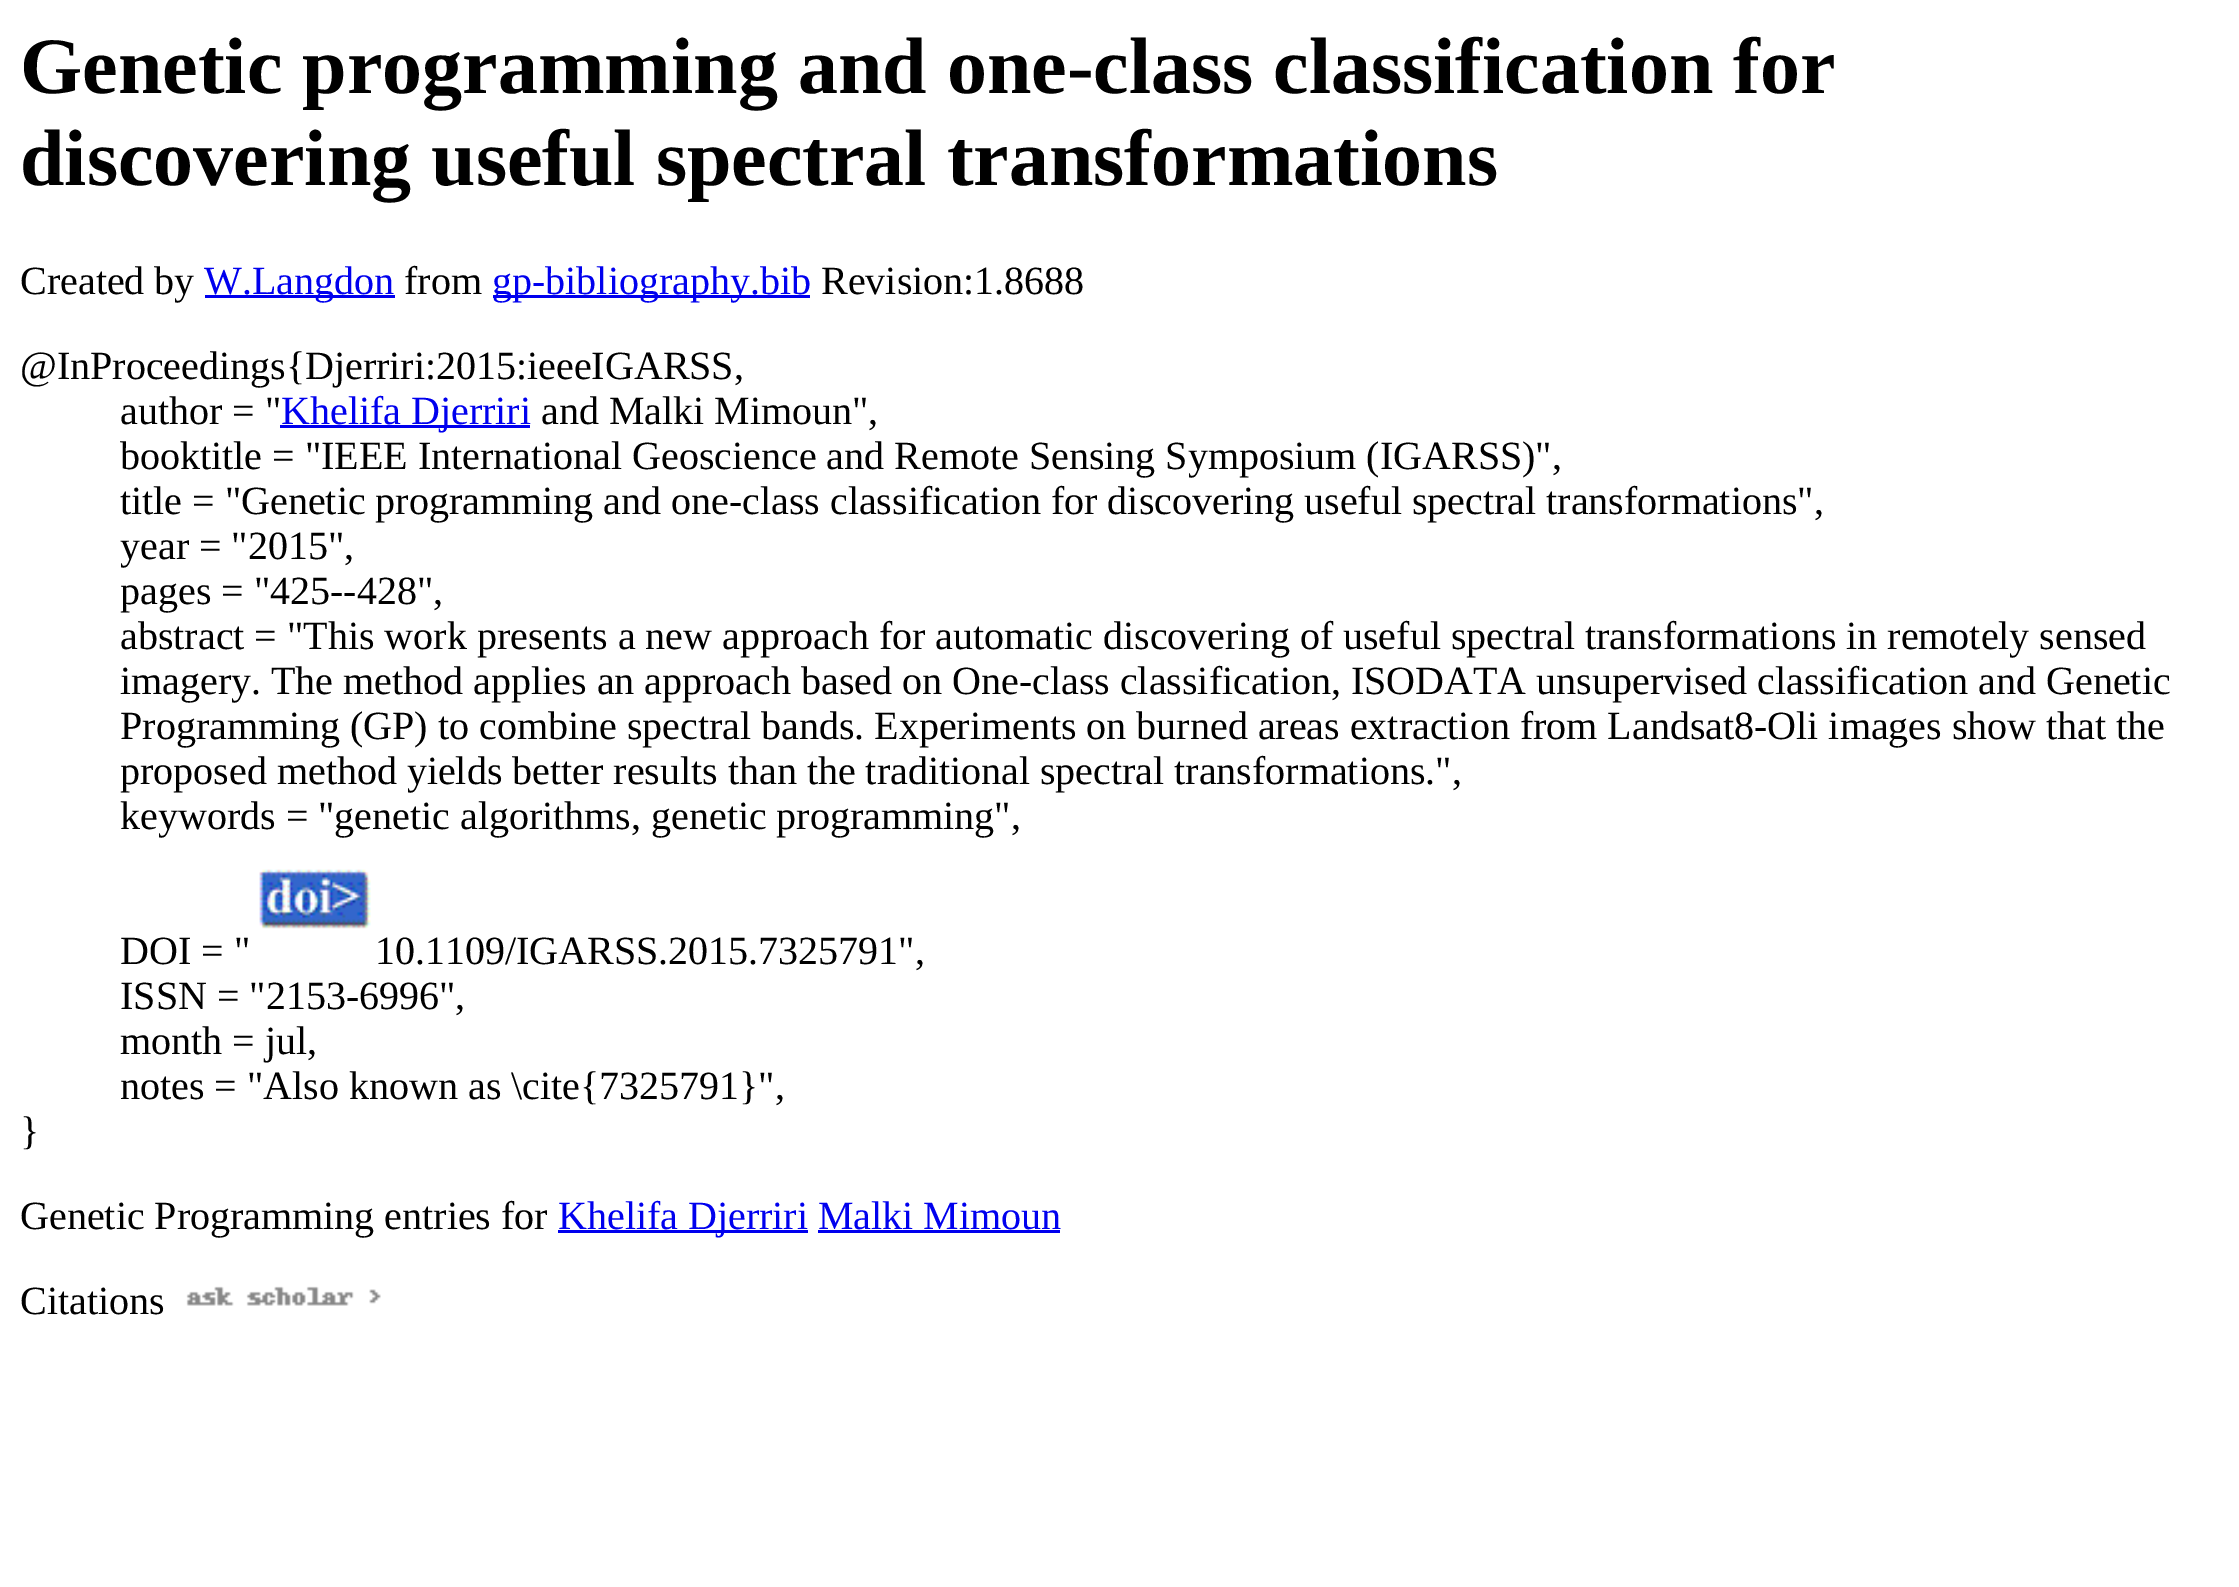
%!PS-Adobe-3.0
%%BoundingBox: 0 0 2239 1587
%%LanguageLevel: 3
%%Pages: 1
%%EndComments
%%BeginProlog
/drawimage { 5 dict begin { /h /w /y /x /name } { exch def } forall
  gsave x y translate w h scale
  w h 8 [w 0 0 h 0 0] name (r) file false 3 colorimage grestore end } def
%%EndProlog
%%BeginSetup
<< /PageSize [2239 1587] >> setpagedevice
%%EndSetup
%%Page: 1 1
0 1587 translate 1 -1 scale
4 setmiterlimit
1 setgray
0 0 2239 1587 rectfill
0 0 0.933 setrgbcolor
205 295 190 3 rectfill
493 295 317 3 rectfill
280 425 250 3 rectfill
(images/1.raw) 259 869 112 60 drawimage
558 1230 250 3 rectfill
818 1230 242 3 rectfill
(images/2.raw) 186 1286 195 20 drawimage
/LiberationSerif-Bold [80 0 0 -80 0 0] selectfont
0 setgray
20 93 moveto (Genetic programming and one-class classification for) show
20 185 moveto (discovering useful spectral transformations) show
/LiberationSerif-Regular [40 0 0 -40 0 0] selectfont
20 294 moveto (Created by) show
0 0 0.933 setrgbcolor
204 294 moveto (W.Langdon) show
0 setgray
404 294 moveto (from) show
0 0 0.933 setrgbcolor
492 294 moveto (gp-bibliography.bib) show
0 setgray
821 294 moveto (Revision:1.8688) show
20 379 moveto (@InProceedings{Djerriri:2015:ieeeIGARSS,) show
120 424 moveto (author = ") show
0 0 0.933 setrgbcolor
281 424 moveto (Khelifa Djerriri) show
0 setgray
541 424 moveto (and Malki Mimoun",) show
120 469 moveto (booktitle = "IEEE International Geoscience and Remote Sensing Symposium \(IGARSS\)",) show
120 514 moveto (title = "Genetic programming and one-class classification for discovering useful spectral transformations",) show
120 559 moveto (year = "2015",) show
120 604 moveto (pages = "425--428",) show
120 649 moveto (abstract = "This work presents a new approach for automatic discovering of useful spectral transformations in remotely sensed) show
120 694 moveto (imagery. The method applies an approach based on One-class classification, ISODATA unsupervised classification and Genetic) show
120 739 moveto (Programming \(GP\) to combine spectral bands. Experiments on burned areas extraction from Landsat8-Oli images show that the) show
120 784 moveto (proposed method yields better results than the traditional spectral transformations.",) show
120 829 moveto (keywords = "genetic algorithms, genetic programming",) show
120 964 moveto (DOI = ") show
375 964 moveto (10.1109/IGARSS.2015.7325791",) show
120 1009 moveto (ISSN = "2153-6996",) show
120 1054 moveto (month = jul,) show
120 1099 moveto (notes = "Also known as \\cite{7325791}",) show
20 1144 moveto (}) show
20 1229 moveto (Genetic Programming entries for) show
0 0 0.933 setrgbcolor
558 1229 moveto (Khelifa Djerriri Malki Mimoun) show
0 setgray
20 1314 moveto (Citations) show
showpage
%%EOF
